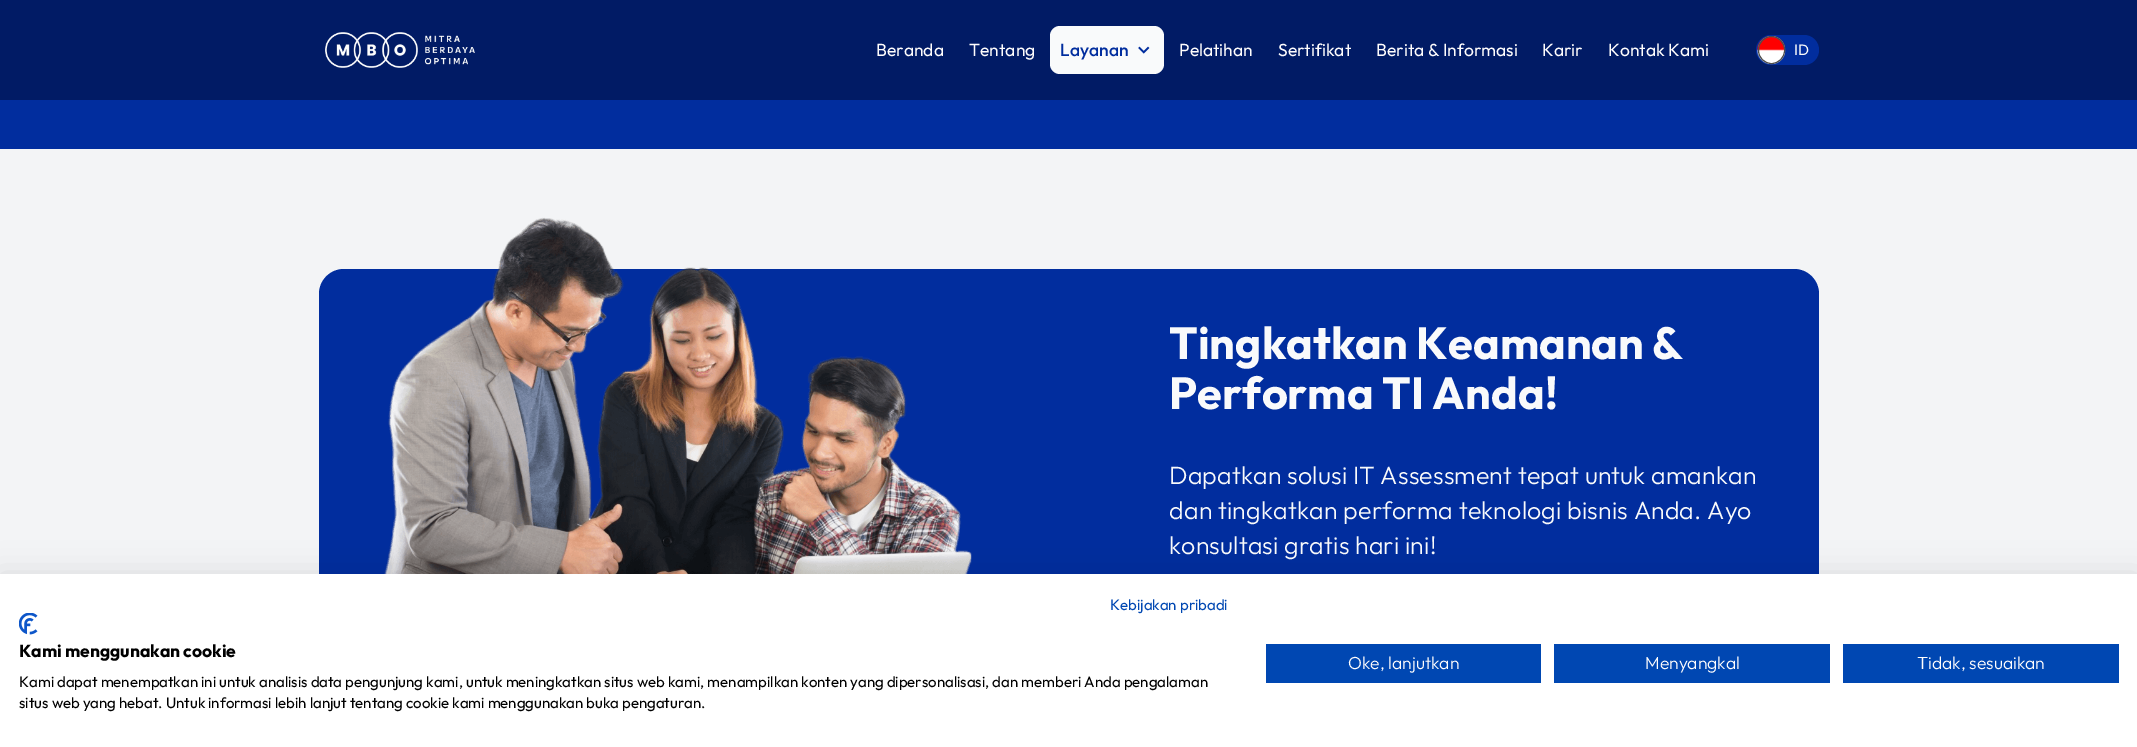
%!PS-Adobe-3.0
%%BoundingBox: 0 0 2137 747
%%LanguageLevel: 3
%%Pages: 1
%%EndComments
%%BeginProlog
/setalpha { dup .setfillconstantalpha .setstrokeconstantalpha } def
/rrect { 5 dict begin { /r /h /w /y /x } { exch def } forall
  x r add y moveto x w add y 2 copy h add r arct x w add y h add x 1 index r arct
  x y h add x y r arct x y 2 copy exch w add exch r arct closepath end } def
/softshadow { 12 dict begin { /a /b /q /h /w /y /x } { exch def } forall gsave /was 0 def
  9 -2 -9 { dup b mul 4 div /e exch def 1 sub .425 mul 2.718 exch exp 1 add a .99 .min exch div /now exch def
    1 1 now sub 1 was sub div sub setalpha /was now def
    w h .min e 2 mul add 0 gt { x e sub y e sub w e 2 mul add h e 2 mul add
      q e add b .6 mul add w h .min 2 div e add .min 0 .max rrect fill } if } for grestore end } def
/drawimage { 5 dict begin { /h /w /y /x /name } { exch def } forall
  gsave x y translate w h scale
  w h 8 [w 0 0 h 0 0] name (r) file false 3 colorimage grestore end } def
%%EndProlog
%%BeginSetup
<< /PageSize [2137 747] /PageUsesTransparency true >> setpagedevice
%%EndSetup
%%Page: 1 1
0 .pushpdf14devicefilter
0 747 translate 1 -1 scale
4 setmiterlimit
0.953 0.957 0.965 setrgbcolor
0 0 2137 747 rectfill
0.004 0.106 0.396 setrgbcolor
0 0 2137 100 rectfill
(images/1.raw) 325 32 150 36 drawimage
0.976 0.98 0.984 setrgbcolor
1050 26 114 48 10 rrect fill
(images/2.raw) 1138 46 12 8 drawimage
0.004 0.176 0.62 setrgbcolor
1756 35 63 30 15 rrect fill
(images/3.raw) 1757 36 29 29 drawimage
0.302 setgray
1758.5 36.5 26 27 13 rrect stroke
0.004 0.176 0.62 setrgbcolor
0 100 2137 49 rectfill
319 269 1500 457 25 rrect fill
(images/4.raw) 384 217 588 357 drawimage
0 setgray
0 574 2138 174 0 15 0.1 softshadow
1 setgray
0 574 2137 173 rectfill
(images/5.raw) 19 613 19 22 drawimage
0 0.278 0.698 setrgbcolor
1266 644 275 39 rectfill
1554 644 276 39 rectfill
1843 644 276 39 rectfill
/Outfit-Regular [17.5 0 0 -17.5 0 0] selectfont
1 0.992 0.992 setrgbcolor
876 56 moveto (Beranda) show
969 56 moveto (Tentang) show
/Outfit-Medium [17.5 0 0 -17.5 0 0] selectfont
0.004 0.176 0.62 setrgbcolor
1060 56 moveto (Layanan) show
/Outfit-Regular [17.5 0 0 -17.5 0 0] selectfont
1 0.992 0.992 setrgbcolor
1179 56 moveto (Pelatihan) show
1278 56 moveto (Sertifikat) show
1376 56 moveto (Berita & Informasi) show
1542 56 moveto (Karir) show
1608 56 moveto (Kontak Kami) show
/Outfit-Regular [15 0 0 -15 0 0] selectfont
0.976 0.98 0.984 setrgbcolor
1794 55 moveto (ID) show
/Outfit-Bold [45 0 0 -45 0 0] selectfont
1169 359 moveto (Tingkatkan Keamanan &) show
1169 409 moveto (Performa TI Anda!) show
/Outfit-Light [25 0 0 -25 0 0] selectfont
1169 484 moveto 0.15 0 (Dapatkan solusi IT Assessment tepat untuk amankan) ashow
1169 519 moveto 0.15 0 (dan tingkatkan performa teknologi bisnis Anda. Ayo) ashow
1169 554 moveto 0.15 0 (konsultasi gratis hari ini!) ashow
/Outfit-Regular [15 0 0 -15 0 0] selectfont
0 0.278 0.698 setrgbcolor
1110 610 moveto (Kebijakan pribadi) show
/Outfit-Bold [17.5 0 0 -17.5 0 0] selectfont
0 setgray
19 657 moveto (Kami menggunakan cookie) show
/Outfit-Regular [15 0 0 -15 0 0] selectfont
19 687 moveto (Kami dapat menempatkan ini untuk analisis data pengunjung kami, untuk meningkatkan situs web kami, menampilkan konten yang dipersonalisasi, dan memberi Anda pengalaman) show
19 708 moveto (situs web yang hebat. Untuk informasi lebih lanjut tentang cookie kami menggunakan buka pengaturan.) show
/Outfit-Light [17.5 0 0 -17.5 0 0] selectfont
1 0.992 0.992 setrgbcolor
1348 669 moveto (Oke, lanjutkan) show
1645 669 moveto (Menyangkal) show
1917 669 moveto (Tidak, sesuaikan) show
.poppdf14devicefilter showpage
%%EOF
